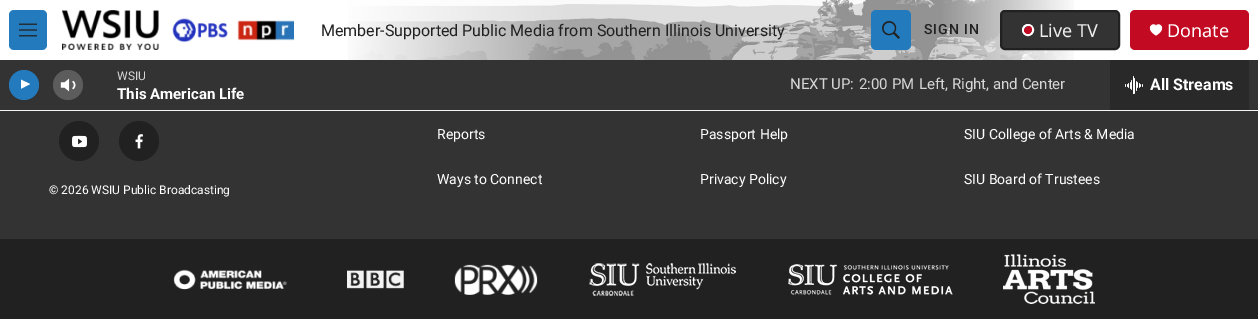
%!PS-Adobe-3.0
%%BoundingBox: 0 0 1258 319
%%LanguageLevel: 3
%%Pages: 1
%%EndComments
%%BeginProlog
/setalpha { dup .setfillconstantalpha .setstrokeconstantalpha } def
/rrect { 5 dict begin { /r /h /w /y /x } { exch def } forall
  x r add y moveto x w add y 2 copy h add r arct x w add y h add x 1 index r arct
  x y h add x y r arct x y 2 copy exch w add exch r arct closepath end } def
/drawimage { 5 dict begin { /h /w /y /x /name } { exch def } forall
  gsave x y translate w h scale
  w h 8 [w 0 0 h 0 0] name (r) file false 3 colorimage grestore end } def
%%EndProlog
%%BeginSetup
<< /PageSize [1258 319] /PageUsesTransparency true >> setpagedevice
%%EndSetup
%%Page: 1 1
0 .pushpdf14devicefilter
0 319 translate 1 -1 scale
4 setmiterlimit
0.2 setgray
0 0 1258 319 rectfill
1 setgray
0 0 1258 60 rectfill
0.961 setgray
0 110 1258 1 rectfill
(images/1.raw) 348 0 726 60 drawimage
0.137 0.482 0.741 setrgbcolor
9 10 38 40 5 rrect fill
(images/2.raw) 19 23 18 14 drawimage
(images/3.raw) 62 10 232 40 drawimage
871 10 40 40 5 rrect fill
(images/4.raw) 882 21 18 18 drawimage
0.2 setgray
1001 11 118 38 4 rrect gsave fill grestore
0.129 setgray
2 setlinewidth
stroke
1 setgray
newpath 1028 30 5 0 360 arc closepath stroke
0.761 0.039 0.133 setrgbcolor
newpath 1029 26 moveto 1035 27.5 1030.5 37 1025.5 33 curveto 1025 32.5 1024 31.5 1024 31 curveto 1024 28.5 1027 26.5 1029 26 curveto closepath fill
1130 10 119 40 5 rrect fill
1 setgray
newpath 1156 26 moveto 1154 21 1143.5 28 1156 35.5 curveto 1168.5 28 1158 21 1156 26 curveto closepath fill
0.137 0.482 0.741 setrgbcolor
newpath 24 85 15 0 360 arc closepath fill
gsave
21 78 12 15 rectclip
1 setgray
newpath 20.5 79.5 moveto 30 84 lineto 20.5 89 lineto closepath fill
grestore
(images/5.raw) 60 78 16 14 drawimage
0.2 setalpha
1 setgray
newpath 68 85 15 0 360 arc closepath fill
1 setalpha
0.161 setgray
1110 60 139 50 rectfill
(images/6.raw) 1125 76 18 18 drawimage
0.129 setgray
newpath 79 141 20 0 360 arc closepath fill
(images/7.raw) 72 135 15 13 drawimage
newpath 139 141 20 0 360 arc closepath fill
(images/8.raw) 135 134 8 15 drawimage
0 239 1258 80 rectfill
(images/9.raw) 173 269 114 21 drawimage
(images/10.raw) 347 270 57 19 drawimage
(images/11.raw) 454 264 84 31 drawimage
(images/12.raw) 589 263 147 33 drawimage
(images/13.raw) 788 264 165 31 drawimage
(images/14.raw) 1003 254 92 50 drawimage
/Roboto-Regular [16 0 0 -16 0 0] selectfont
321 36 moveto (Member-Supported Public Media from Southern Illinois University) show
/Roboto-Medium [14 0 0 -14 0 0] selectfont
924 34 moveto 1 0 (SIGN IN) ashow
/NotoSans-Regular [18 0 0 -18 0 0] selectfont
0.937 setgray
1039 37 moveto (Live TV) show
1 setgray
1167 37 moveto (Donate) show
/Roboto-Regular [12 0 0 -12 0 0] selectfont
0.839 setgray
117 80 moveto (WSIU) show
/Roboto-Bold [15 0 0 -15 0 0] selectfont
1 setgray
117 99 moveto (This American Life) show
/Roboto-Regular [15 0 0 -15 0 0] selectfont
0.839 setgray
790 89 moveto (NEXT UP:) show
859 89 moveto (2:00 PM) show
919 89 moveto (Left, Right, and Center) show
/Roboto-Bold [16 0 0 -16 0 0] selectfont
1 setgray
1150 90 moveto (All Streams) show
/Roboto-Regular [14 0 0 -14 0 0] selectfont
437 139 moveto (Reports) show
700 139 moveto (Passport Help) show
964 139 moveto (SIU College of Arts & Media) show
437 184 moveto (Ways to Connect) show
700 184 moveto (Privacy Policy) show
964 184 moveto (SIU Board of Trustees) show
/Roboto-Regular [12 0 0 -12 0 0] selectfont
49 194 moveto (© 2026 WSIU Public Broadcasting) show
.poppdf14devicefilter showpage
%%EOF
